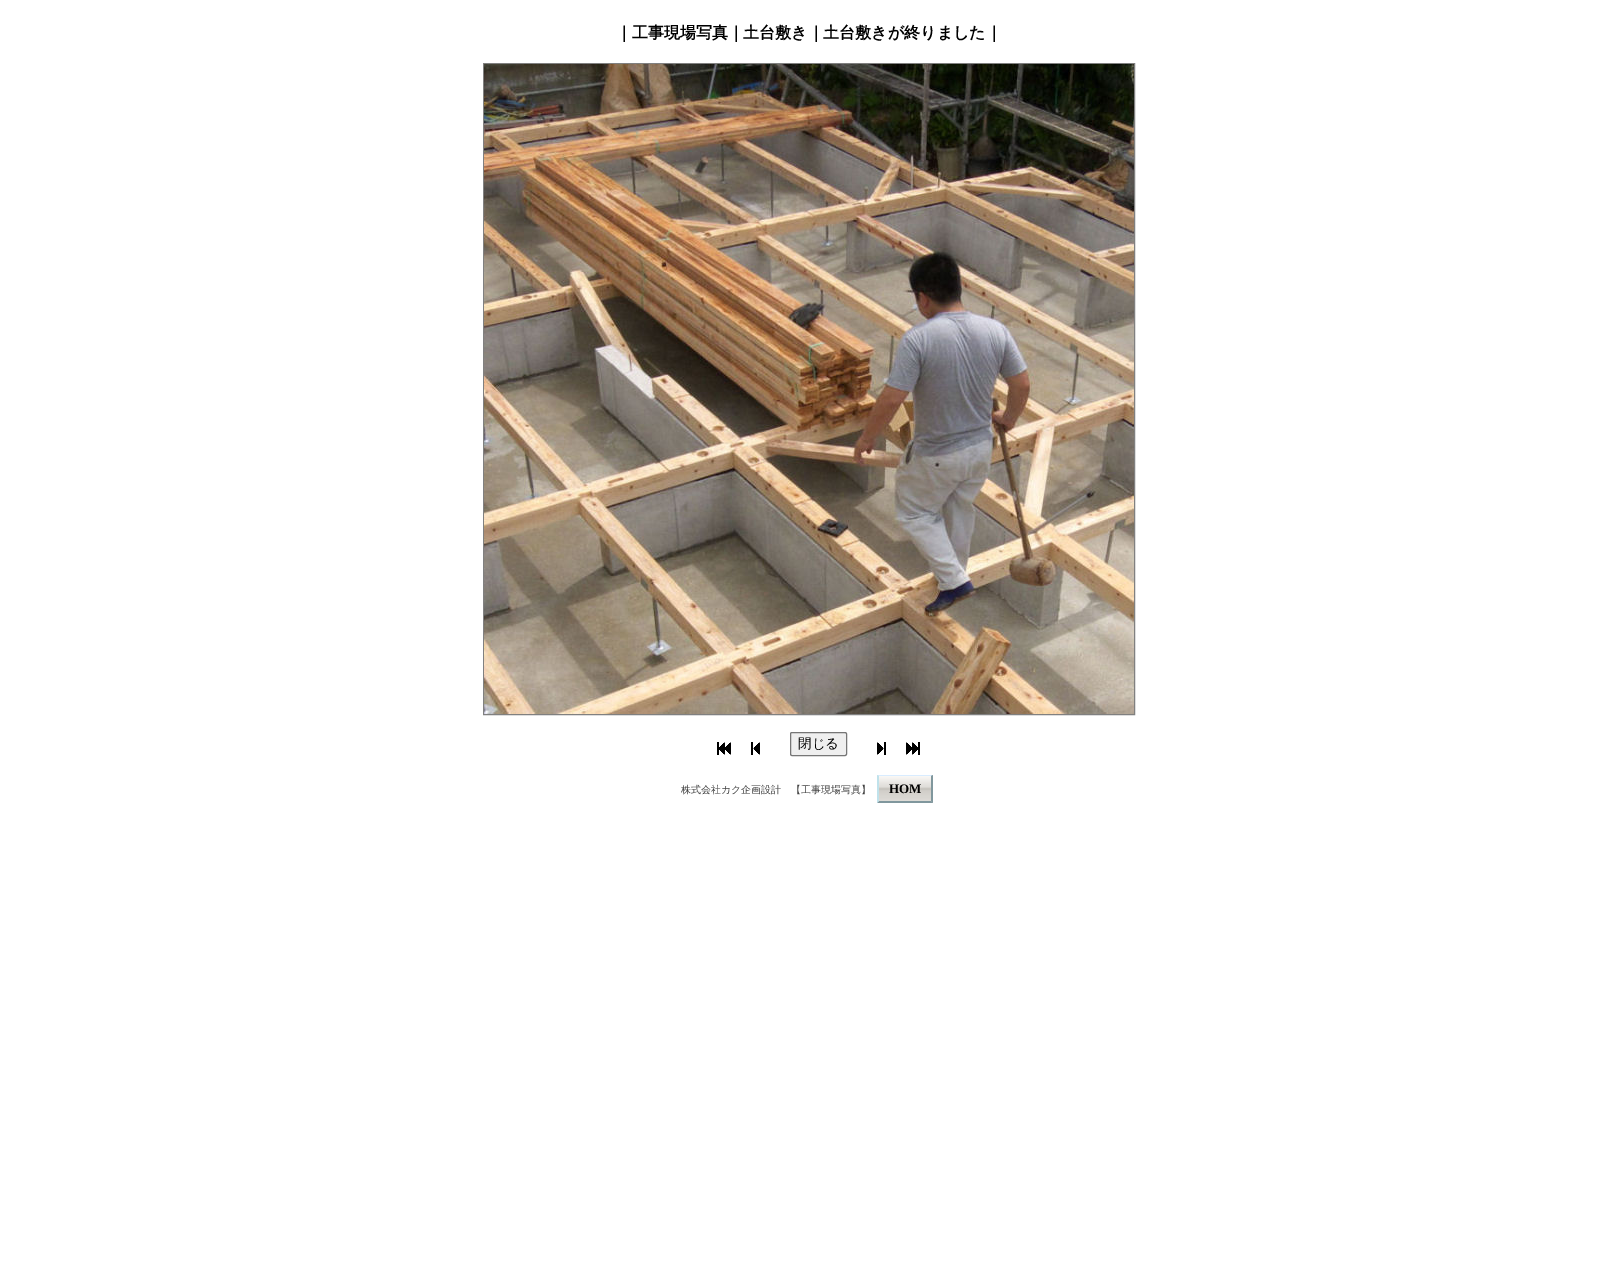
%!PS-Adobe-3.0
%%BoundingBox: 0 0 1617 1267
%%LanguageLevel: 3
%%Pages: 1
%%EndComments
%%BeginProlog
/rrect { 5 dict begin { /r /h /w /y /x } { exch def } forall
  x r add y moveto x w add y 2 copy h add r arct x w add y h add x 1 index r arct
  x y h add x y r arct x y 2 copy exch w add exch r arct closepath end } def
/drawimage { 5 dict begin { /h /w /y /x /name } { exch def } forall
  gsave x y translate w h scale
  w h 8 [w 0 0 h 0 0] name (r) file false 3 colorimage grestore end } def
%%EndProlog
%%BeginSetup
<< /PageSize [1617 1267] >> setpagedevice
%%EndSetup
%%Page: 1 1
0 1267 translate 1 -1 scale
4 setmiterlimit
1 setgray
0 0 1617 1267 rectfill
0.502 setgray
483.5 63.5 651 651 rectstroke
(images/1.raw) 484 64 650 650 drawimage
(images/2.raw) 717 742 14 13 drawimage
(images/3.raw) 751 742 9 13 drawimage
0.937 setgray
790.5 732.5 56 23 1.5 rrect gsave fill grestore
0.463 setgray
stroke
(images/4.raw) 877 742 9 13 drawimage
(images/5.raw) 906 742 14 13 drawimage
(images/6.raw) 877 775 56 28 drawimage
0.851 0.925 1 setrgbcolor
newpath 877 775 moveto 933 775 lineto 931 776 lineto 879 776 lineto closepath fill
0.502 0.592 0.616 setrgbcolor
newpath 933 775 moveto 933 803 lineto 931 801 lineto 931 776 lineto closepath fill
newpath 933 803 moveto 877 803 lineto 879 801 lineto 931 801 lineto closepath fill
0.753 0.886 0.922 setrgbcolor
newpath 877 803 moveto 877 775 lineto 879 776 lineto 879 801 lineto closepath fill
/WenQuanYiZenHei-Bold [16 0 0 -16 0 0] selectfont
0 setgray
616 38 moveto (｜工事現場写真｜土台敷き｜土台敷きが終りました｜) show
/WenQuanYiZenHei-Medium [13.5 0 0 -13.5 0 0] selectfont
798 748 moveto (閉じる) show
/WenQuanYiZenHei-Medium [10 0 0 -10 0 0] selectfont
0.255 setgray
681 793 moveto (株式会社カク企画設計　【工事現場写真】) show
/LiberationSerif-Bold [13 0 0 -13 0 0] selectfont
0 setgray
889 793 moveto (HOM) show
showpage
%%EOF
